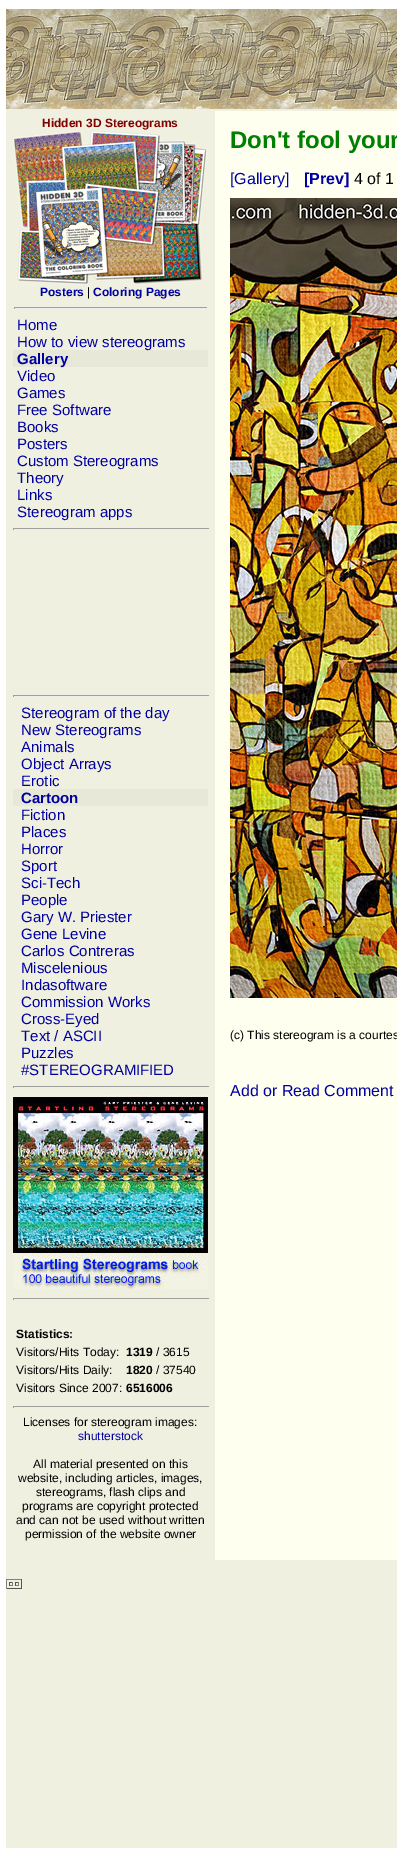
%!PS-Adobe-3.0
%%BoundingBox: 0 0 397 1857
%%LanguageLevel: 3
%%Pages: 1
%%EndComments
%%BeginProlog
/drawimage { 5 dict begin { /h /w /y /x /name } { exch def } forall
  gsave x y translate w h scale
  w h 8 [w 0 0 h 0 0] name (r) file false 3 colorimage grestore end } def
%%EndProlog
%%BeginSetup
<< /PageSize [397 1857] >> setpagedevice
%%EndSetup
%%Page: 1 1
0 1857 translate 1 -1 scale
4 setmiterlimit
1 setgray
0 0 397 1857 rectfill
0.941 0.941 0.878 setrgbcolor
6 109 391 1739 rectfill
(images/1.raw) 6 9 391 100 drawimage
(images/2.raw) 13 130 195 155 drawimage
0.624 setgray
14 307 194 1 rectfill
0.933 setgray
207 307 1 2 rectfill
14 308 194 1 rectfill
0.624 setgray
14 307 1 2 rectfill
0.91 0.91 0.847 setrgbcolor
13 350 195 17 rectfill
0.624 setgray
13 528 197 1 rectfill
0.933 setgray
209 528 1 2 rectfill
13 529 197 1 rectfill
0.624 setgray
13 528 1 2 rectfill
13 695 197 1 rectfill
0.933 setgray
209 695 1 2 rectfill
13 696 197 1 rectfill
0.624 setgray
13 695 1 2 rectfill
0.91 0.91 0.847 setrgbcolor
13 789 195 17 rectfill
0.624 setgray
13 1086 197 1 rectfill
0.933 setgray
209 1086 1 2 rectfill
13 1087 197 1 rectfill
0.624 setgray
13 1086 1 2 rectfill
(images/3.raw) 13 1095 195 194 drawimage
13 1298 197 1 rectfill
0.933 setgray
209 1298 1 2 rectfill
13 1299 197 1 rectfill
0.624 setgray
13 1298 1 2 rectfill
13 1406 197 1 rectfill
0.933 setgray
209 1406 1 2 rectfill
13 1407 197 1 rectfill
0.624 setgray
13 1406 1 2 rectfill
1 1 0.941 setrgbcolor
215 111 182 1449 rectfill
(images/4.raw) 230 198 167 800 drawimage
0.502 setgray
6 1579 16 1 rectfill
0.333 setgray
21 1579 1 10 rectfill
6 1588 16 1 rectfill
0.502 setgray
6 1579 1 10 rectfill
0.333 setgray
9 1582 4 1 rectfill
0.502 setgray
12 1582 1 4 rectfill
9 1585 4 1 rectfill
0.333 setgray
9 1582 1 4 rectfill
15 1582 4 1 rectfill
0.502 setgray
18 1582 1 4 rectfill
15 1585 4 1 rectfill
0.333 setgray
15 1582 1 4 rectfill
/LiberationSans-Bold [12 0 0 -12 0 0] selectfont
0.502 0 0 setrgbcolor
42 127 moveto (Hidden 3D Stereograms) show
0 0 0.627 setrgbcolor
40 296 moveto (Posters) show
/LiberationSans-Regular [12 0 0 -12 0 0] selectfont
0 setgray
87 296 moveto (|) show
/LiberationSans-Bold [12 0 0 -12 0 0] selectfont
0 0 0.627 setrgbcolor
93 296 moveto (Coloring Pages) show
/LiberationSans-Regular [15 0 0 -15 0 0] selectfont
17 330 moveto (Home) show
17 347 moveto (How to view stereograms) show
/LiberationSans-Bold [15 0 0 -15 0 0] selectfont
17 364 moveto (Gallery) show
/LiberationSans-Regular [15 0 0 -15 0 0] selectfont
17 381 moveto (Video) show
17 398 moveto (Games) show
17 415 moveto (Free Software) show
17 432 moveto (Books) show
17 449 moveto (Posters) show
17 466 moveto (Custom Stereograms) show
17 483 moveto (Theory) show
17 500 moveto (Links) show
17 517 moveto (Stereogram apps) show
21 718 moveto (Stereogram of the day) show
21 735 moveto (New Stereograms) show
21 752 moveto (Animals) show
21 769 moveto (Object Arrays) show
21 786 moveto (Erotic) show
/LiberationSans-Bold [15 0 0 -15 0 0] selectfont
21 803 moveto (Cartoon) show
/LiberationSans-Regular [15 0 0 -15 0 0] selectfont
21 820 moveto (Fiction) show
21 837 moveto (Places) show
21 854 moveto (Horror) show
21 871 moveto (Sport) show
21 888 moveto (Sci-Tech) show
21 905 moveto (People) show
21 922 moveto (Gary W. Priester) show
21 939 moveto (Gene Levine) show
21 956 moveto (Carlos Contreras) show
21 973 moveto (Miscelenious) show
21 990 moveto (Indasoftware) show
21 1007 moveto (Commission Works) show
21 1024 moveto (Cross-Eyed) show
21 1041 moveto (Text / ASCII) show
21 1058 moveto (Puzzles) show
21 1075 moveto (#STEREOGRAMIFIED) show
/LiberationSans-Bold [12 0 0 -12 0 0] selectfont
0 setgray
16 1338 moveto (Statistics:) show
/LiberationSans-Regular [12 0 0 -12 0 0] selectfont
16 1356 moveto (Visitors/Hits Today:) show
/LiberationSans-Bold [12 0 0 -12 0 0] selectfont
126 1356 moveto (1319) show
/LiberationSans-Regular [12 0 0 -12 0 0] selectfont
156 1356 moveto (/ 3615) show
16 1374 moveto (Visitors/Hits Daily:) show
/LiberationSans-Bold [12 0 0 -12 0 0] selectfont
126 1374 moveto (1820) show
/LiberationSans-Regular [12 0 0 -12 0 0] selectfont
156 1374 moveto (/ 37540) show
16 1392 moveto (Visitors Since 2007:) show
/LiberationSans-Bold [12 0 0 -12 0 0] selectfont
126 1392 moveto (6516006) show
/LiberationSans-Regular [12 0 0 -12 0 0] selectfont
23 1426 moveto (Licenses for stereogram images:) show
0 0 0.627 setrgbcolor
78 1440 moveto (shutterstock) show
0 setgray
33 1468 moveto (All material presented on this) show
18 1482 moveto (website, including articles, images,) show
36 1496 moveto (stereograms, flash clips and) show
22 1510 moveto (programs are copyright protected) show
16 1524 moveto (and can not be used without written) show
25 1538 moveto (permission of the website owner) show
/LiberationSans-Bold [24 0 0 -24 0 0] selectfont
0 0.502 0 setrgbcolor
230 148 moveto (Don't fool your) show
/LiberationSans-Regular [16 0 0 -16 0 0] selectfont
0 0 0.627 setrgbcolor
230 184 moveto ([Gallery]) show
/LiberationSans-Bold [16 0 0 -16 0 0] selectfont
304 184 moveto ([Prev]) show
/LiberationSans-Regular [16 0 0 -16 0 0] selectfont
0 setgray
354 184 moveto (4 of 1) show
/LiberationSans-Regular [12 0 0 -12 0 0] selectfont
230 1039 moveto (\(c\) This stereogram is a courtes) show
/LiberationSans-Regular [16 0 0 -16 0 0] selectfont
0 0 0.627 setrgbcolor
230 1096 moveto (Add or Read Comment) show
showpage
%%EOF
